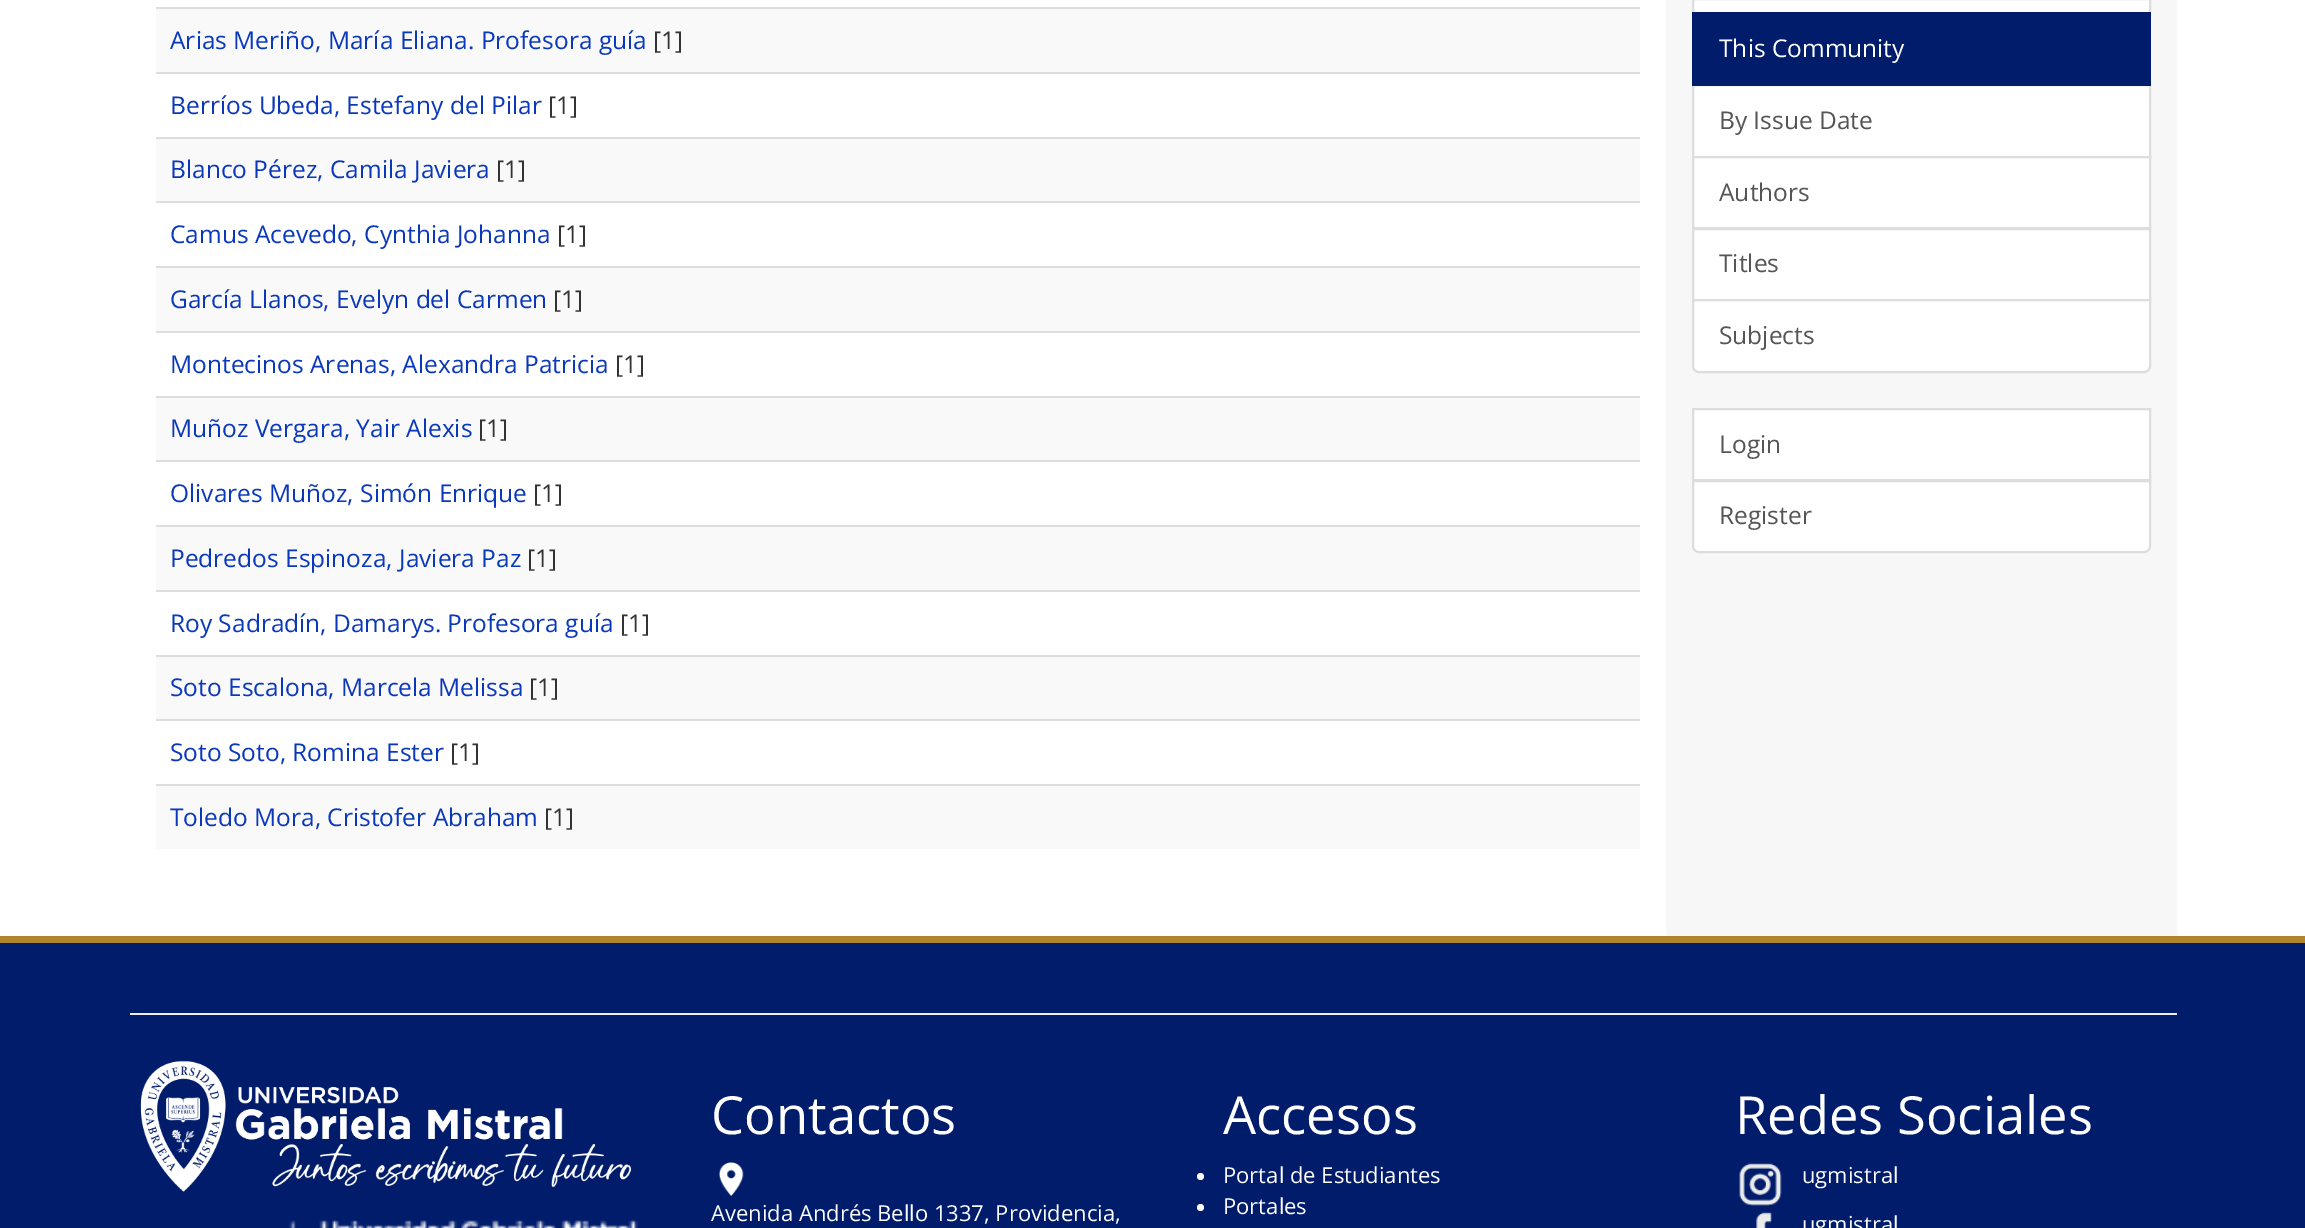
%!PS-Adobe-3.0
%%BoundingBox: 0 0 2305 1228
%%LanguageLevel: 3
%%Pages: 1
%%EndComments
%%BeginProlog
/drawimage { 5 dict begin { /h /w /y /x /name } { exch def } forall
  gsave x y translate w h scale
  w h 8 [w 0 0 h 0 0] name (r) file false 3 colorimage grestore end } def
%%EndProlog
%%BeginSetup
<< /PageSize [2305 1228] >> setpagedevice
%%EndSetup
%%Page: 1 1
0 1228 translate 1 -1 scale
4 setmiterlimit
1 setgray
0 0 2305 1228 rectfill
0.969 setgray
1666 0 511 936 rectfill
0.976 setgray
156 9 1484 63 rectfill
0.867 setgray
156 7 1484 2 rectfill
156 72 1484 2 rectfill
0.976 setgray
156 139 1484 62 rectfill
0.867 setgray
156 137 1484 2 rectfill
156 201 1484 2 rectfill
0.976 setgray
156 268 1484 63 rectfill
0.867 setgray
156 266 1484 2 rectfill
156 331 1484 2 rectfill
0.976 setgray
156 398 1484 62 rectfill
0.867 setgray
156 396 1484 2 rectfill
156 460 1484 2 rectfill
0.976 setgray
156 527 1484 63 rectfill
0.867 setgray
156 525 1484 2 rectfill
156 590 1484 2 rectfill
0.976 setgray
156 657 1484 62 rectfill
0.867 setgray
156 655 1484 2 rectfill
156 719 1484 2 rectfill
0.976 setgray
156 786 1484 63 rectfill
0.867 setgray
156 784 1484 2 rectfill
1 setgray
newpath 1693 -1 moveto 2150 -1 lineto 2150 13 lineto 1693 13 lineto closepath gsave fill grestore
0.867 setgray
2 setlinewidth
stroke
1 setgray
newpath 1693 85 moveto 2150 85 lineto 2150 157 lineto 1693 157 lineto closepath gsave fill grestore
0.867 setgray
stroke
0 0.11 0.42 setrgbcolor
1692 12 459 74 rectfill
1 setgray
newpath 1693 157 moveto 2150 157 lineto 2150 228 lineto 1693 228 lineto closepath gsave fill grestore
0.867 setgray
stroke
1 setgray
newpath 1693 229 moveto 2150 229 lineto 2150 300 lineto 1693 300 lineto closepath gsave fill grestore
0.867 setgray
stroke
1 setgray
newpath 1693 300 moveto 2150 300 lineto 2150 366 lineto 2150 369.5 2147.5 372 2144 372 curveto 1699 372 lineto 1695.5 372 1693 369.5 1693 366 curveto closepath gsave fill grestore
0.867 setgray
stroke
1 setgray
newpath 1693 409 moveto 2150 409 lineto 2150 480 lineto 1693 480 lineto closepath gsave fill grestore
0.867 setgray
stroke
1 setgray
newpath 1693 481 moveto 2150 481 lineto 2150 546 lineto 2150 549.5 2147.5 552 2144 552 curveto 1699 552 lineto 1695.5 552 1693 549.5 1693 546 curveto closepath gsave fill grestore
0.867 setgray
stroke
0 0.11 0.42 setrgbcolor
0 943 2305 285 rectfill
0.686 0.518 0.165 setrgbcolor
0 936 2305 7 rectfill
0.933 setgray
130 1013 2047 2 rectfill
(images/1.raw) 140 1060 491 132 drawimage
(images/2.raw) 289 1220 349 8 drawimage
(images/3.raw) 718 1162 26 34 drawimage
1 setgray
newpath 1200.5 1176.5 3.5 0 360 arc closepath fill
newpath 1200.5 1207.5 3.5 0 360 arc closepath fill
(images/4.raw) 1739 1163 43 43 drawimage
(images/5.raw) 1756 1212 16 16 drawimage
/OpenSans-Regular [24.5 0 0 -24.5 0 0] selectfont
0.039 0.22 0.733 setrgbcolor
170 49 moveto (Arias Meriño, María Eliana. Profesora guía) show
0.2 setgray
653 49 moveto ([1]) show
0.039 0.22 0.733 setrgbcolor
170 114 moveto (Berríos Ubeda, Estefany del Pilar) show
0.2 setgray
548 114 moveto ([1]) show
0.039 0.22 0.733 setrgbcolor
170 178 moveto (Blanco Pérez, Camila Javiera) show
0.2 setgray
496 178 moveto ([1]) show
0.039 0.22 0.733 setrgbcolor
170 243 moveto (Camus Acevedo, Cynthia Johanna) show
0.2 setgray
557 243 moveto ([1]) show
0.039 0.22 0.733 setrgbcolor
170 308 moveto (García Llanos, Evelyn del Carmen) show
0.2 setgray
553 308 moveto ([1]) show
0.039 0.22 0.733 setrgbcolor
170 373 moveto (Montecinos Arenas, Alexandra Patricia) show
0.2 setgray
615 373 moveto ([1]) show
0.039 0.22 0.733 setrgbcolor
170 437 moveto (Muñoz Vergara, Yair Alexis) show
0.2 setgray
478 437 moveto ([1]) show
0.039 0.22 0.733 setrgbcolor
170 502 moveto (Olivares Muñoz, Simón Enrique) show
0.2 setgray
533 502 moveto ([1]) show
0.039 0.22 0.733 setrgbcolor
170 567 moveto (Pedredos Espinoza, Javiera Paz) show
0.2 setgray
527 567 moveto ([1]) show
0.039 0.22 0.733 setrgbcolor
170 632 moveto (Roy Sadradín, Damarys. Profesora guía) show
0.2 setgray
620 632 moveto ([1]) show
0.039 0.22 0.733 setrgbcolor
170 696 moveto (Soto Escalona, Marcela Melissa) show
0.2 setgray
529 696 moveto ([1]) show
0.039 0.22 0.733 setrgbcolor
170 761 moveto (Soto Soto, Romina Ester) show
0.2 setgray
450 761 moveto ([1]) show
0.039 0.22 0.733 setrgbcolor
170 826 moveto (Toledo Mora, Cristofer Abraham) show
0.2 setgray
544 826 moveto ([1]) show
1 setgray
1719 57 moveto (This Community) show
0.333 setgray
1719 129 moveto (By Issue Date) show
1719 201 moveto (Authors) show
1719 272 moveto (Titles) show
1719 344 moveto (Subjects) show
1719 453 moveto (Login) show
1719 524 moveto (Register) show
/OpenSans-Regular [52.5 0 0 -52.5 0 0] selectfont
1 setgray
711 1134 moveto (Contactos) show
/OpenSans-Regular [22 0 0 -22 0 0] selectfont
711 1221 moveto (Avenida Andrés Bello 1337, Providencia,) show
/OpenSans-Regular [52.5 0 0 -52.5 0 0] selectfont
1223 1134 moveto (Accesos) show
/OpenSans-Regular [22 0 0 -22 0 0] selectfont
1223 1183 moveto (Portal de Estudiantes) show
1223 1214 moveto (Portales) show
/OpenSans-Regular [52.5 0 0 -52.5 0 0] selectfont
1735 1134 moveto (Redes Sociales) show
/OpenSans-Regular [22 0 0 -22 0 0] selectfont
1802 1183 moveto (ugmistral) show
1802 1232 moveto (ugmistral) show
showpage
%%EOF
